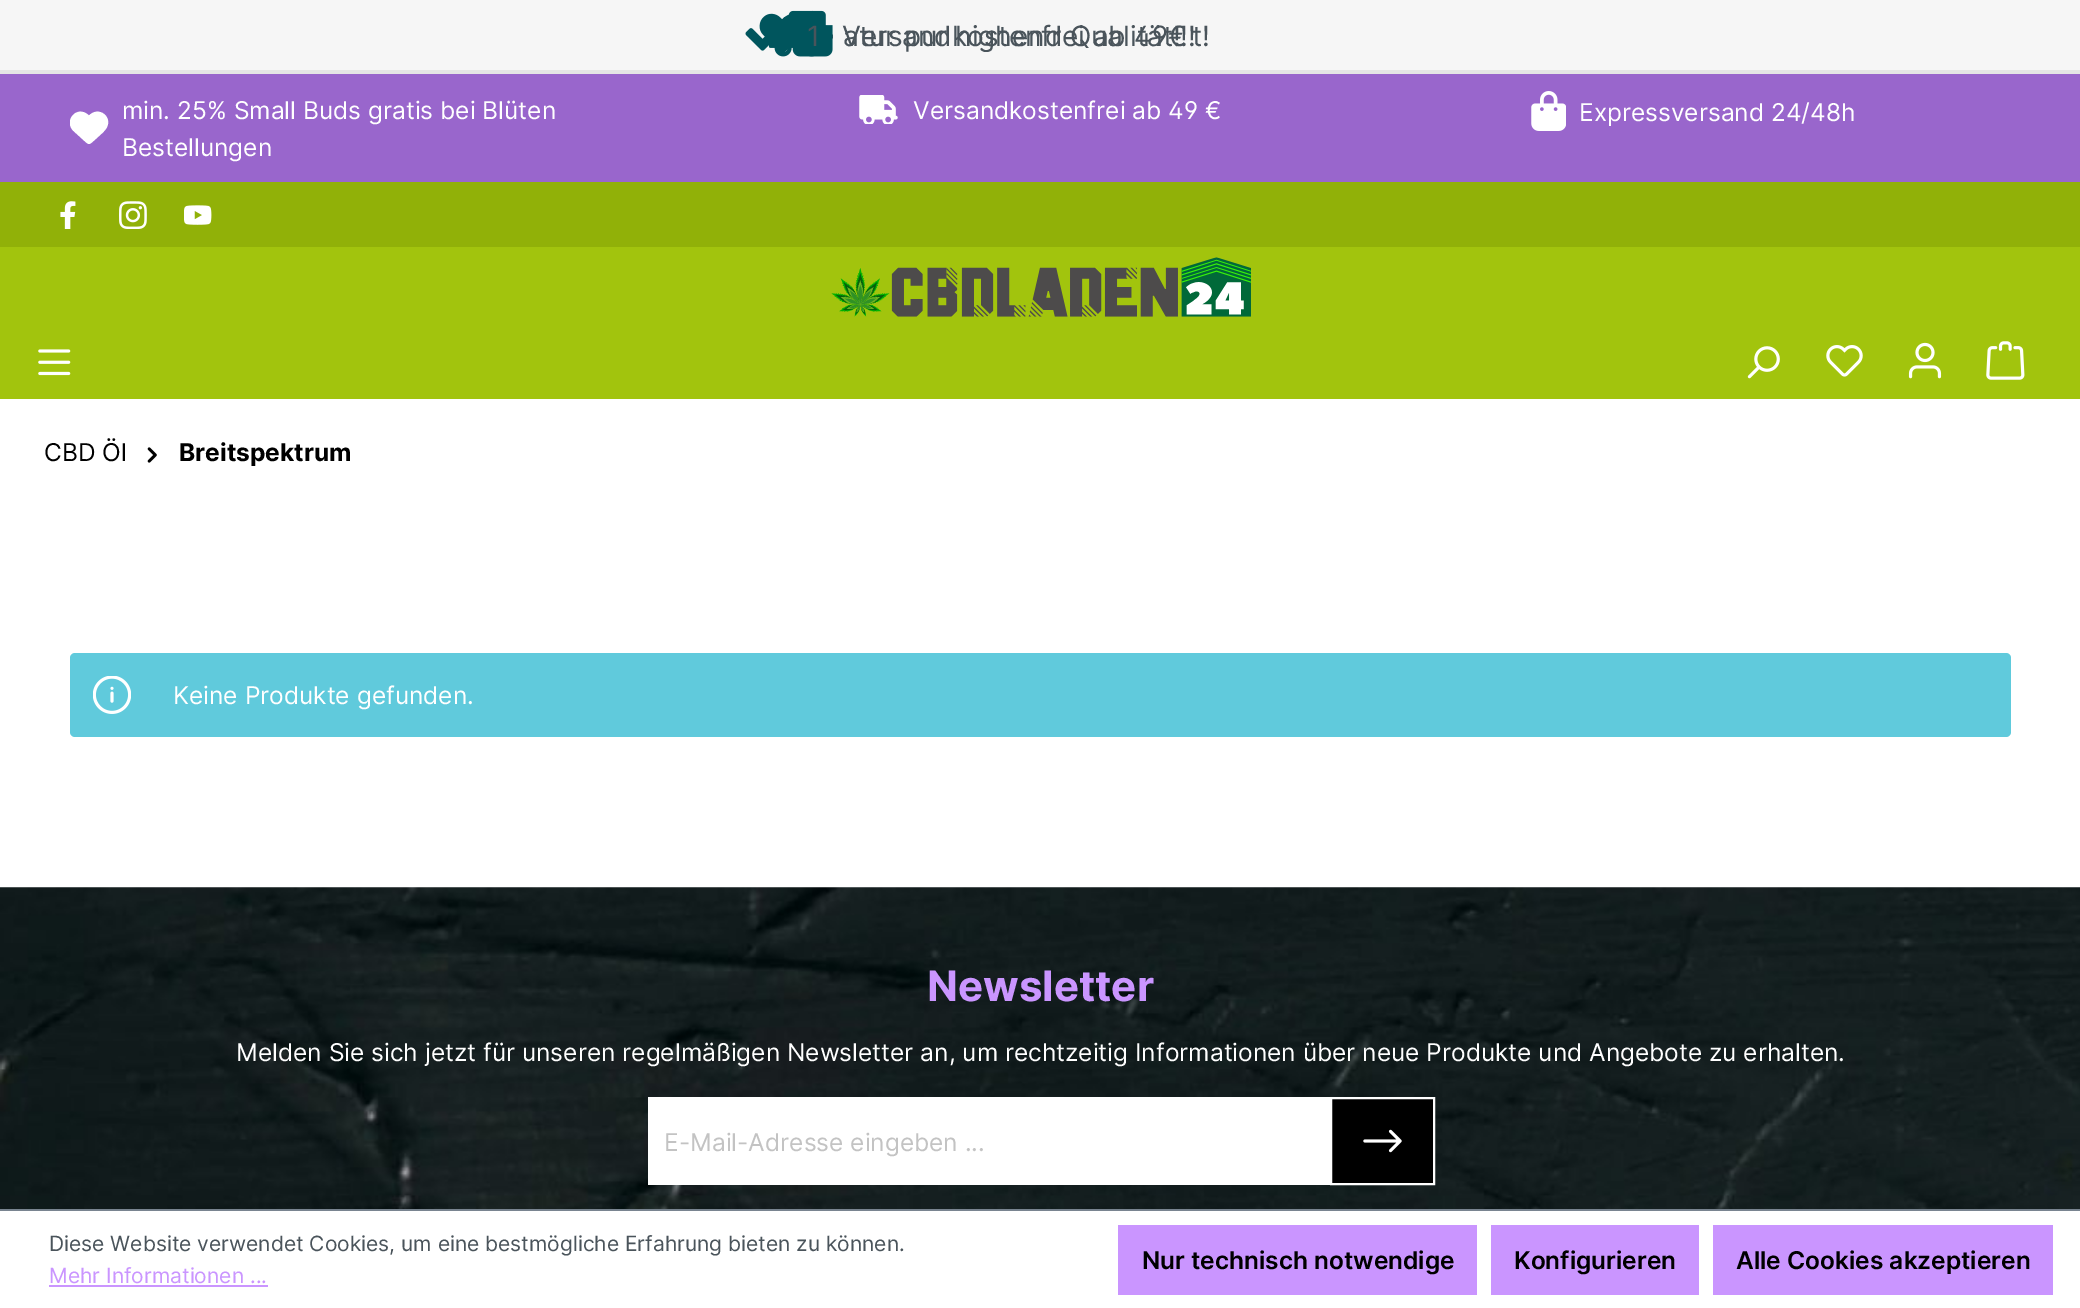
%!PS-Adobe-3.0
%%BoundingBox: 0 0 2080 1308
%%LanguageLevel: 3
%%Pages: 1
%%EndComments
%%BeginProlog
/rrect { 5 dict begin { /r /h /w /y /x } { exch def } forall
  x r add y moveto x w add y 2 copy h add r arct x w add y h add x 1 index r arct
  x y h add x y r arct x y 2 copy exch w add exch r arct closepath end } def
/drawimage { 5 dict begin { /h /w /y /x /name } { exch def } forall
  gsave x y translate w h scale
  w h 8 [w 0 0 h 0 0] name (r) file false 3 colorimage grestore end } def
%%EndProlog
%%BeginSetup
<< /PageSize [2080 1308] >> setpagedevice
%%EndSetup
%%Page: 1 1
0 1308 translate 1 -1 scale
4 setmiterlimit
1 setgray
0 0 2080 1308 rectfill
0.965 setgray
0 0 2080 70 rectfill
0.898 setgray
0 70 2080 4 rectfill
(images/4.raw) 759 13 30 40 drawimage
(images/2.raw) 768 10 58 47 drawimage
(images/1.raw) 792 10 41 47 drawimage
(images/3.raw) 745 16 41 35 drawimage
0.635 0.769 0.051 setrgbcolor
0 247 2080 152 rectfill
0.6 0.4 0.8 setrgbcolor
0 74 2080 108 rectfill
gsave
70 109 39 38 rectclip
1 setgray
newpath 73.5 131 moveto 84.5 141 lineto 89 145 89 145 93.5 141 curveto 98 137 lineto 100.5 134.5 104.5 131.5 106.5 128 curveto 113 117 99 105.5 89 115.5 curveto 77 104 63 121 73.5 131 curveto closepath fill
grestore
(images/5.raw) 859 95 39 29 drawimage
(images/6.raw) 1531 91 35 40 drawimage
0.569 0.694 0.031 setrgbcolor
0 182 2080 65 rectfill
(images/7.raw) 60 201 16 28 drawimage
(images/8.raw) 119 201 28 28 drawimage
(images/9.raw) 184 205 28 20 drawimage
(images/10.raw) 831 257 420 60 drawimage
(images/11.raw) 38 349 33 27 drawimage
(images/12.raw) 1747 346 33 33 drawimage
(images/13.raw) 1826 345 37 32 drawimage
(images/14.raw) 1908 342 34 37 drawimage
(images/15.raw) 1986 341 39 39 drawimage
(images/16.raw) 147 447 10 16 drawimage
0.376 0.792 0.863 setrgbcolor
70 653 1941 84 5 rrect fill
(images/17.raw) 93 676 38 38 drawimage
(images/18.raw) 0 887 2080 322 drawimage
1 setgray
650 1099 680 84 rectfill
648 1097 682 2 rectfill
648 1183 682 2 rectfill
648 1097 2 88 rectfill
0 setgray
newpath 1331 1098 moveto 1434 1098 lineto 1434 1184 lineto 1331 1184 lineto closepath gsave fill grestore
1 setgray
2 setlinewidth
stroke
(images/19.raw) 1363 1129 39 24 drawimage
0.475 0.518 0.565 setrgbcolor
0 1209 2080 2 rectfill
0.792 0.584 1 setrgbcolor
49 1285 219 2 rectfill
1118 1225 359 70 rectfill
1491 1225 208 70 rectfill
1713 1225 340 70 rectfill
/Inter-Regular [28 0 0 -28 0 0] selectfont
0.29 0.329 0.357 setrgbcolor
807 46 moveto (1) show
843 46 moveto (atur pur highend Qualität!!!) show
1192 46 moveto (t!) show
/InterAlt-Regular [28 0 0 -28 0 0] selectfont
842 46 moveto (Versandkostenfrei ab 49€) show
/Inter-Regular [24.5 0 0 -24.5 0 0] selectfont
1 setgray
122 119 moveto (min. 25% Small Buds gratis bei Blüten) show
122 156 moveto (Bestellungen) show
/InterAlt-Regular [24.5 0 0 -24.5 0 0] selectfont
913 119 moveto (Versandkostenfrei ab 49 €) show
/Inter-Regular [24.5 0 0 -24.5 0 0] selectfont
1579 121 moveto (Expressversand 24/48h) show
0 setgray
44 461 moveto (CBD Öl) show
/Inter-Bold [24.5 0 0 -24.5 0 0] selectfont
179 461 moveto (Breitspektrum) show
/Inter-Regular [24.5 0 0 -24.5 0 0] selectfont
1 setgray
173 704 moveto (Keine Produkte gefunden.) show
/Inter-Bold [42 0 0 -42 0 0] selectfont
0.792 0.584 1 setrgbcolor
927 1001 moveto (Newsletter) show
/Inter-Regular [24.5 0 0 -24.5 0 0] selectfont
1 setgray
236 1061 moveto (Melden Sie sich jetzt für unseren regelmäßigen Newsletter an, um rechtzeitig Informationen über neue Produkte und Angebote zu erhalten.) show
0.765 setgray
664 1151 moveto (E-Mail-Adresse eingeben ...) show
/Inter-Regular [21 0 0 -21 0 0] selectfont
0.29 0.329 0.357 setrgbcolor
49 1251 moveto (Diese Website verwendet Cookies, um eine bestmögliche Erfahrung bieten zu können.) show
0.792 0.584 1 setrgbcolor
49 1283 moveto (Mehr Informationen ...) show
/Inter-SemiBold [24.5 0 0 -24.5 0 0] selectfont
0 setgray
1142 1269 moveto (Nur technisch notwendige) show
1514 1269 moveto (Konfigurieren) show
1736 1269 moveto (Alle Cookies akzeptieren) show
showpage
%%EOF
